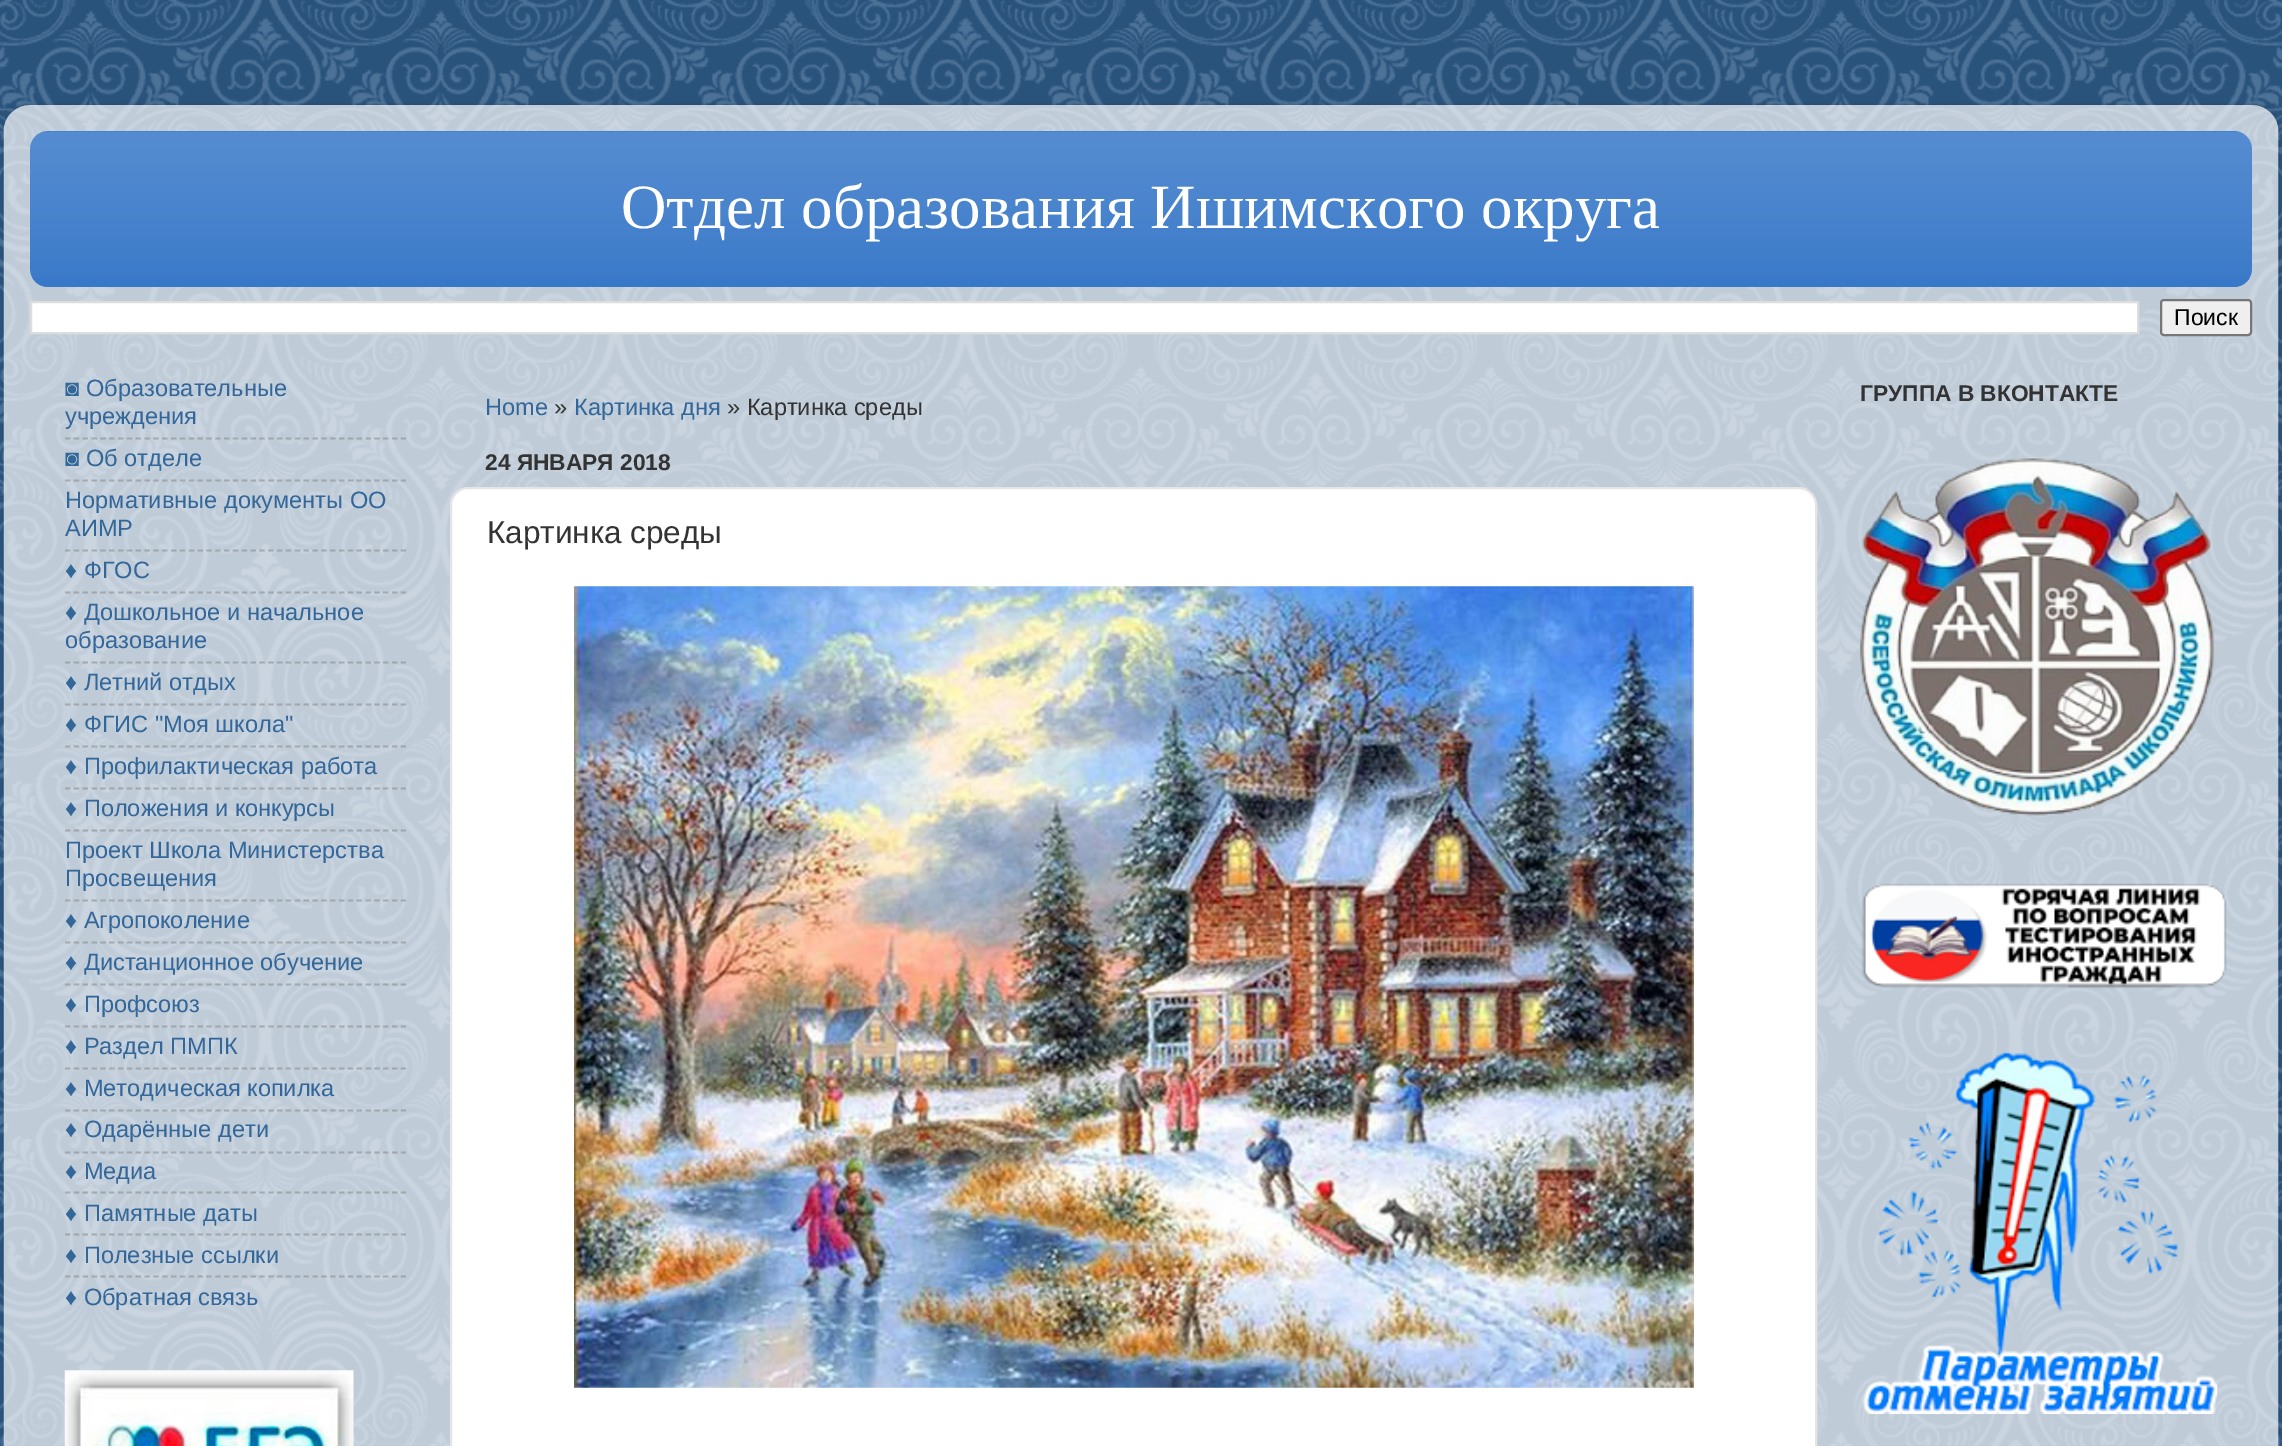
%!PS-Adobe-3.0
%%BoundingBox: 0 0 2282 1446
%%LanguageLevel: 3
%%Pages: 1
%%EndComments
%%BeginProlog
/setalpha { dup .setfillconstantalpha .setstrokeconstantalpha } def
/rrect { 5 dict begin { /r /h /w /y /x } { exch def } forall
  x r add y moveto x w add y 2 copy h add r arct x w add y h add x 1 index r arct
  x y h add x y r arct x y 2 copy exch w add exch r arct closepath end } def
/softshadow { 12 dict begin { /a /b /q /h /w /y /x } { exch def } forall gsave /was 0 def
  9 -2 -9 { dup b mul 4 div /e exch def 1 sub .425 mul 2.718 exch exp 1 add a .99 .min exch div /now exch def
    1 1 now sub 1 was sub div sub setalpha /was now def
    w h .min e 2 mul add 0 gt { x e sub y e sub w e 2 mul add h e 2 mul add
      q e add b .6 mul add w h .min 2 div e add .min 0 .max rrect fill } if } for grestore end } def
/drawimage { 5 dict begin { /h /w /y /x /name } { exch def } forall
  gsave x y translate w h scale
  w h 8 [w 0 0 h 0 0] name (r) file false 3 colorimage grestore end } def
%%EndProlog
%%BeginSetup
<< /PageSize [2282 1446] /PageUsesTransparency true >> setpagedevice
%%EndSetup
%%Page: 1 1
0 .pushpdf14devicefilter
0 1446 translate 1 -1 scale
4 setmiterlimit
0.2 0.4 0.6 setrgbcolor
0 0 2282 1446 rectfill
(images/1.raw) 0 0 2282 1446 drawimage
gsave
newpath 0 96 moveto 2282 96 lineto 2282 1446 lineto 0 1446 lineto closepath 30 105 moveto 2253 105 lineto 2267.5 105 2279 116.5 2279 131 curveto 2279 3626 lineto 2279 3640.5 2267.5 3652 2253 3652 curveto 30 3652 lineto 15.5 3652 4 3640.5 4 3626 curveto 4 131 lineto 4 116.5 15.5 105 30 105 curveto closepath eoclip newpath
0 setgray
4 105 2275 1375 26 2.5 0.15 softshadow
grestore
(images/2.raw) 3 105 2276 1341 drawimage
0.22 0.471 0.784 setrgbcolor
30 131 2222 156 18 rrect fill
(images/3.raw) 30 131 2222 147 drawimage
1 setgray
newpath 31 302 moveto 2138 302 lineto 2138 333 lineto 31 333 lineto closepath gsave fill grestore
0.867 setgray
2 setlinewidth
stroke
0.937 setgray
2161 300 90 35 3 rrect gsave fill grestore
0.463 setgray
stroke
0.5 setalpha
0.502 setgray
1.8 setlinewidth
[5.25 3.59] 0 setdash
newpath 65 438.5 moveto 406 438.5 lineto stroke
newpath 65 480.5 moveto 406 480.5 lineto stroke
newpath 65 550.5 moveto 406 550.5 lineto stroke
newpath 65 592.5 moveto 406 592.5 lineto stroke
newpath 65 662.5 moveto 406 662.5 lineto stroke
newpath 65 704.5 moveto 406 704.5 lineto stroke
newpath 65 746.5 moveto 406 746.5 lineto stroke
newpath 65 788.5 moveto 406 788.5 lineto stroke
newpath 65 830.5 moveto 406 830.5 lineto stroke
newpath 65 900.5 moveto 406 900.5 lineto stroke
newpath 65 942.5 moveto 406 942.5 lineto stroke
newpath 65 984.5 moveto 406 984.5 lineto stroke
newpath 65 1026.5 moveto 406 1026.5 lineto stroke
newpath 65 1068.5 moveto 406 1068.5 lineto stroke
newpath 65 1110.5 moveto 406 1110.5 lineto stroke
newpath 65 1152.5 moveto 406 1152.5 lineto stroke
newpath 65 1192.5 moveto 406 1192.5 lineto stroke
newpath 65 1234.5 moveto 406 1234.5 lineto stroke
newpath 65 1276.5 moveto 406 1276.5 lineto stroke
1 setalpha
(images/4.raw) 64 1370 290 76 drawimage
(images/5.raw) 1860 458 355 358 drawimage
(images/6.raw) 1861 883 366 106 drawimage
(images/7.raw) 1862 1051 356 363 drawimage
1 setgray
451 488 1365 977 17 rrect gsave fill grestore
0.898 setgray
2 setlinewidth
[] 0 setdash
stroke
(images/8.raw) 574 586 1120 802 drawimage
/LiberationSerif-Regular [63 0 0 -63 0 0] selectfont
1 setgray
621 228 moveto (Отдел образования Ишимского округа) show
/LiberationSans-Regular [23 0 0 -23 0 0] selectfont
0 setgray
2174 325 moveto (Поиск) show
/LiberationSans-Regular [23.6 0 0 -23.6 0 0] selectfont
0.2 0.4 0.6 setrgbcolor
65 396 moveto (◙ Образовательные) show
65 424 moveto (учреждения) show
65 466 moveto (◙ Об отделе) show
65 508 moveto (Нормативные документы ОО) show
65 536 moveto (АИМР) show
65 578 moveto (♦ ФГОС) show
65 620 moveto (♦ Дошкольное и начальное) show
65 648 moveto (образование) show
65 690 moveto (♦ Летний отдых) show
65 732 moveto (♦ ФГИС "Моя школа") show
65 774 moveto (♦ Профилактическая работа) show
65 816 moveto (♦ Положения и конкурсы) show
65 858 moveto (Проект Школа Министерства) show
65 886 moveto (Просвещения) show
65 928 moveto (♦ Агропоколение) show
65 970 moveto (♦ Дистанционное обучение) show
65 1012 moveto (♦ Профсоюз) show
65 1054 moveto (♦ Раздел ПМПК) show
65 1096 moveto (♦ Методическая копилка) show
65 1137 moveto (♦ Одарённые дети) show
65 1179 moveto (♦ Медиа) show
65 1221 moveto (♦ Памятные даты) show
65 1263 moveto (♦ Полезные ссылки) show
65 1305 moveto (♦ Обратная связь) show
/LiberationSans-Bold [22.75 0 0 -22.75 0 0] selectfont
0.2 setgray
1860 401 moveto (ГРУППА В ВКОНТАКТЕ) show
/LiberationSans-Regular [23.6 0 0 -23.6 0 0] selectfont
0.2 0.4 0.6 setrgbcolor
485 415 moveto (Home) show
0.2 setgray
554 415 moveto (») show
0.2 0.4 0.6 setrgbcolor
574 415 moveto (Картинка дня) show
0.2 setgray
727 415 moveto (» Картинка среды) show
/LiberationSans-Bold [22.75 0 0 -22.75 0 0] selectfont
485 470 moveto (24 ЯНВАРЯ 2018) show
/LiberationSans-Regular [31.5 0 0 -31.5 0 0] selectfont
487 543 moveto (Картинка среды) show
.poppdf14devicefilter showpage
%%EOF
